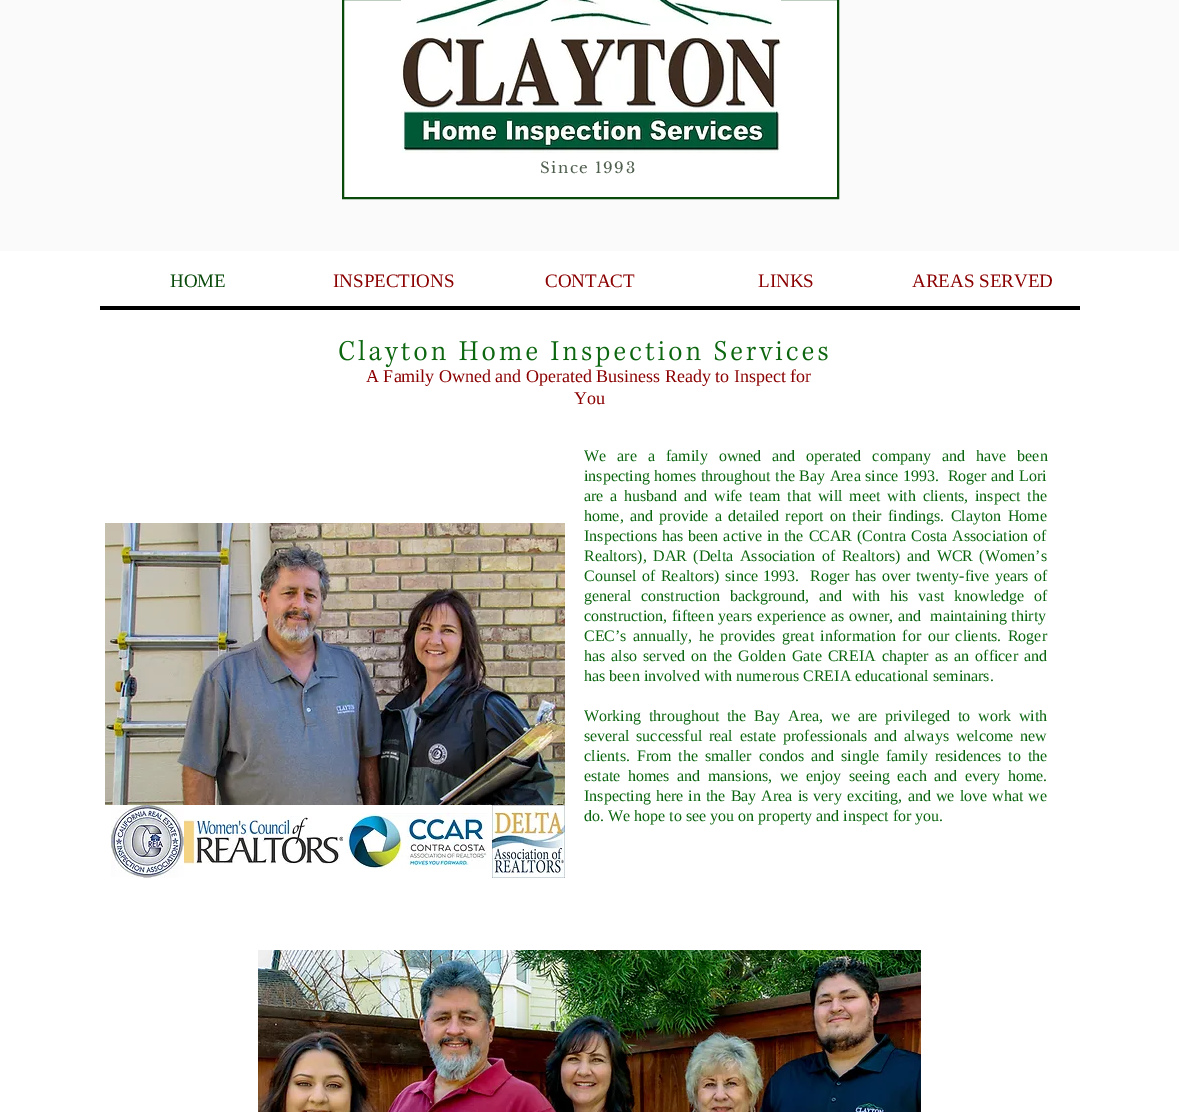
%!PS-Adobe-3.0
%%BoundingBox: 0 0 1179 1112
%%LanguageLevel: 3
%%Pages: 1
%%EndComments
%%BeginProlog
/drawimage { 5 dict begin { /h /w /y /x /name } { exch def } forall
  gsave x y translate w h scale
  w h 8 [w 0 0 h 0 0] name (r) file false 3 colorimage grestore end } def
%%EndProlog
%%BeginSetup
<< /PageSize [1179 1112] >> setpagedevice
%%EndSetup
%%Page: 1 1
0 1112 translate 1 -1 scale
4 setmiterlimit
1 setgray
0 0 1179 1112 rectfill
0.98 setgray
0 0 1179 251 rectfill
1 setgray
newpath 343 -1 moveto 838 -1 lineto 838 198 lineto 343 198 lineto closepath gsave fill grestore
0.035 0.29 0.043 setrgbcolor
2 setlinewidth
stroke
(images/1.raw) 401 0 380 153 drawimage
0 setgray
100 306 980 4 rectfill
(images/2.raw) 339 339 489 29 drawimage
(images/3.raw) 105 523 460 282 drawimage
(images/4.raw) 111 805 73 73 drawimage
(images/5.raw) 184 816 159 49 drawimage
(images/6.raw) 343 813 144 56 drawimage
(images/7.raw) 492 805 73 73 drawimage
(images/8.raw) 258 950 663 162 drawimage
/LibreBaskerville-Regular [15 0 0 -15 0 0] selectfont
0.306 0.369 0.302 setrgbcolor
540 173 moveto 1.5 0 (Since 1993) ashow
/LiberationSerif-Regular [19 0 0 -19 0 0] selectfont
0.035 0.29 0.043 setrgbcolor
170 287 moveto (HOME) show
0.545 0 0 setrgbcolor
333 287 moveto (INSPECTIONS) show
545 287 moveto (CONTACT) show
758 287 moveto (LINKS) show
912 287 moveto (AREAS SERVED) show
/LiberationSerif-Regular [18 0 0 -18 0 0] selectfont
366 382 moveto (A Family Owned and Operated Business Ready to Inspect for) show
574 404 moveto (You) show
/LiberationSerif-Regular [16 0 0 -16 0 0] selectfont
0.047 0.4 0.059 setrgbcolor
584 461 moveto 7 0 32 (We are a family owned and operated company and have been) widthshow
584 481 moveto 0.5 0 32 (inspecting homes throughout the Bay Area since 1993.  Roger and Lori) widthshow
584 501 moveto 2.75 0 32 (are a husband and wife team that will meet with clients, inspect the) widthshow
584 521 moveto 2.4 0 32 (home, and provide a detailed report on their findings. Clayton Home) widthshow
584 541 moveto 1 0 32 (Inspections has been active in the CCAR \(Contra Costa Association of) widthshow
584 561 moveto 2.5 0 32 (Realtors\), DAR \(Delta Association of Realtors\) and WCR \(Women’s) widthshow
584 581 moveto 1.5 0 32 (Counsel of Realtors\) since 1993.  Roger has over twenty-five years of) widthshow
584 601 moveto 5.75 0 32 (general construction background, and with his vast knowledge of) widthshow
584 621 moveto 0.75 0 32 (construction, fifteen years experience as owner, and  maintaining thirty) widthshow
584 641 moveto 2.5 0 32 (CEC’s annually, he provides great information for our clients. Roger) widthshow
584 661 moveto 2 0 32 (has also served on the Golden Gate CREIA chapter as an officer and) widthshow
584 681 moveto (has been involved with numerous CREIA educational seminars.) show
584 721 moveto 3.9 0 32 (Working throughout the Bay Area, we are privileged to work with) widthshow
584 741 moveto 2.9 0 32 (several successful real estate professionals and always welcome new) widthshow
584 761 moveto 2.9 0 32 (clients. From the smaller condos and single family residences to the) widthshow
584 781 moveto 3.5 0 32 (estate homes and mansions, we enjoy seeing each and every home.) widthshow
584 801 moveto 1.1 0 32 (Inspecting here in the Bay Area is very exciting, and we love what we) widthshow
584 821 moveto (do. We hope to see you on property and inspect for you.) show
showpage
%%EOF
